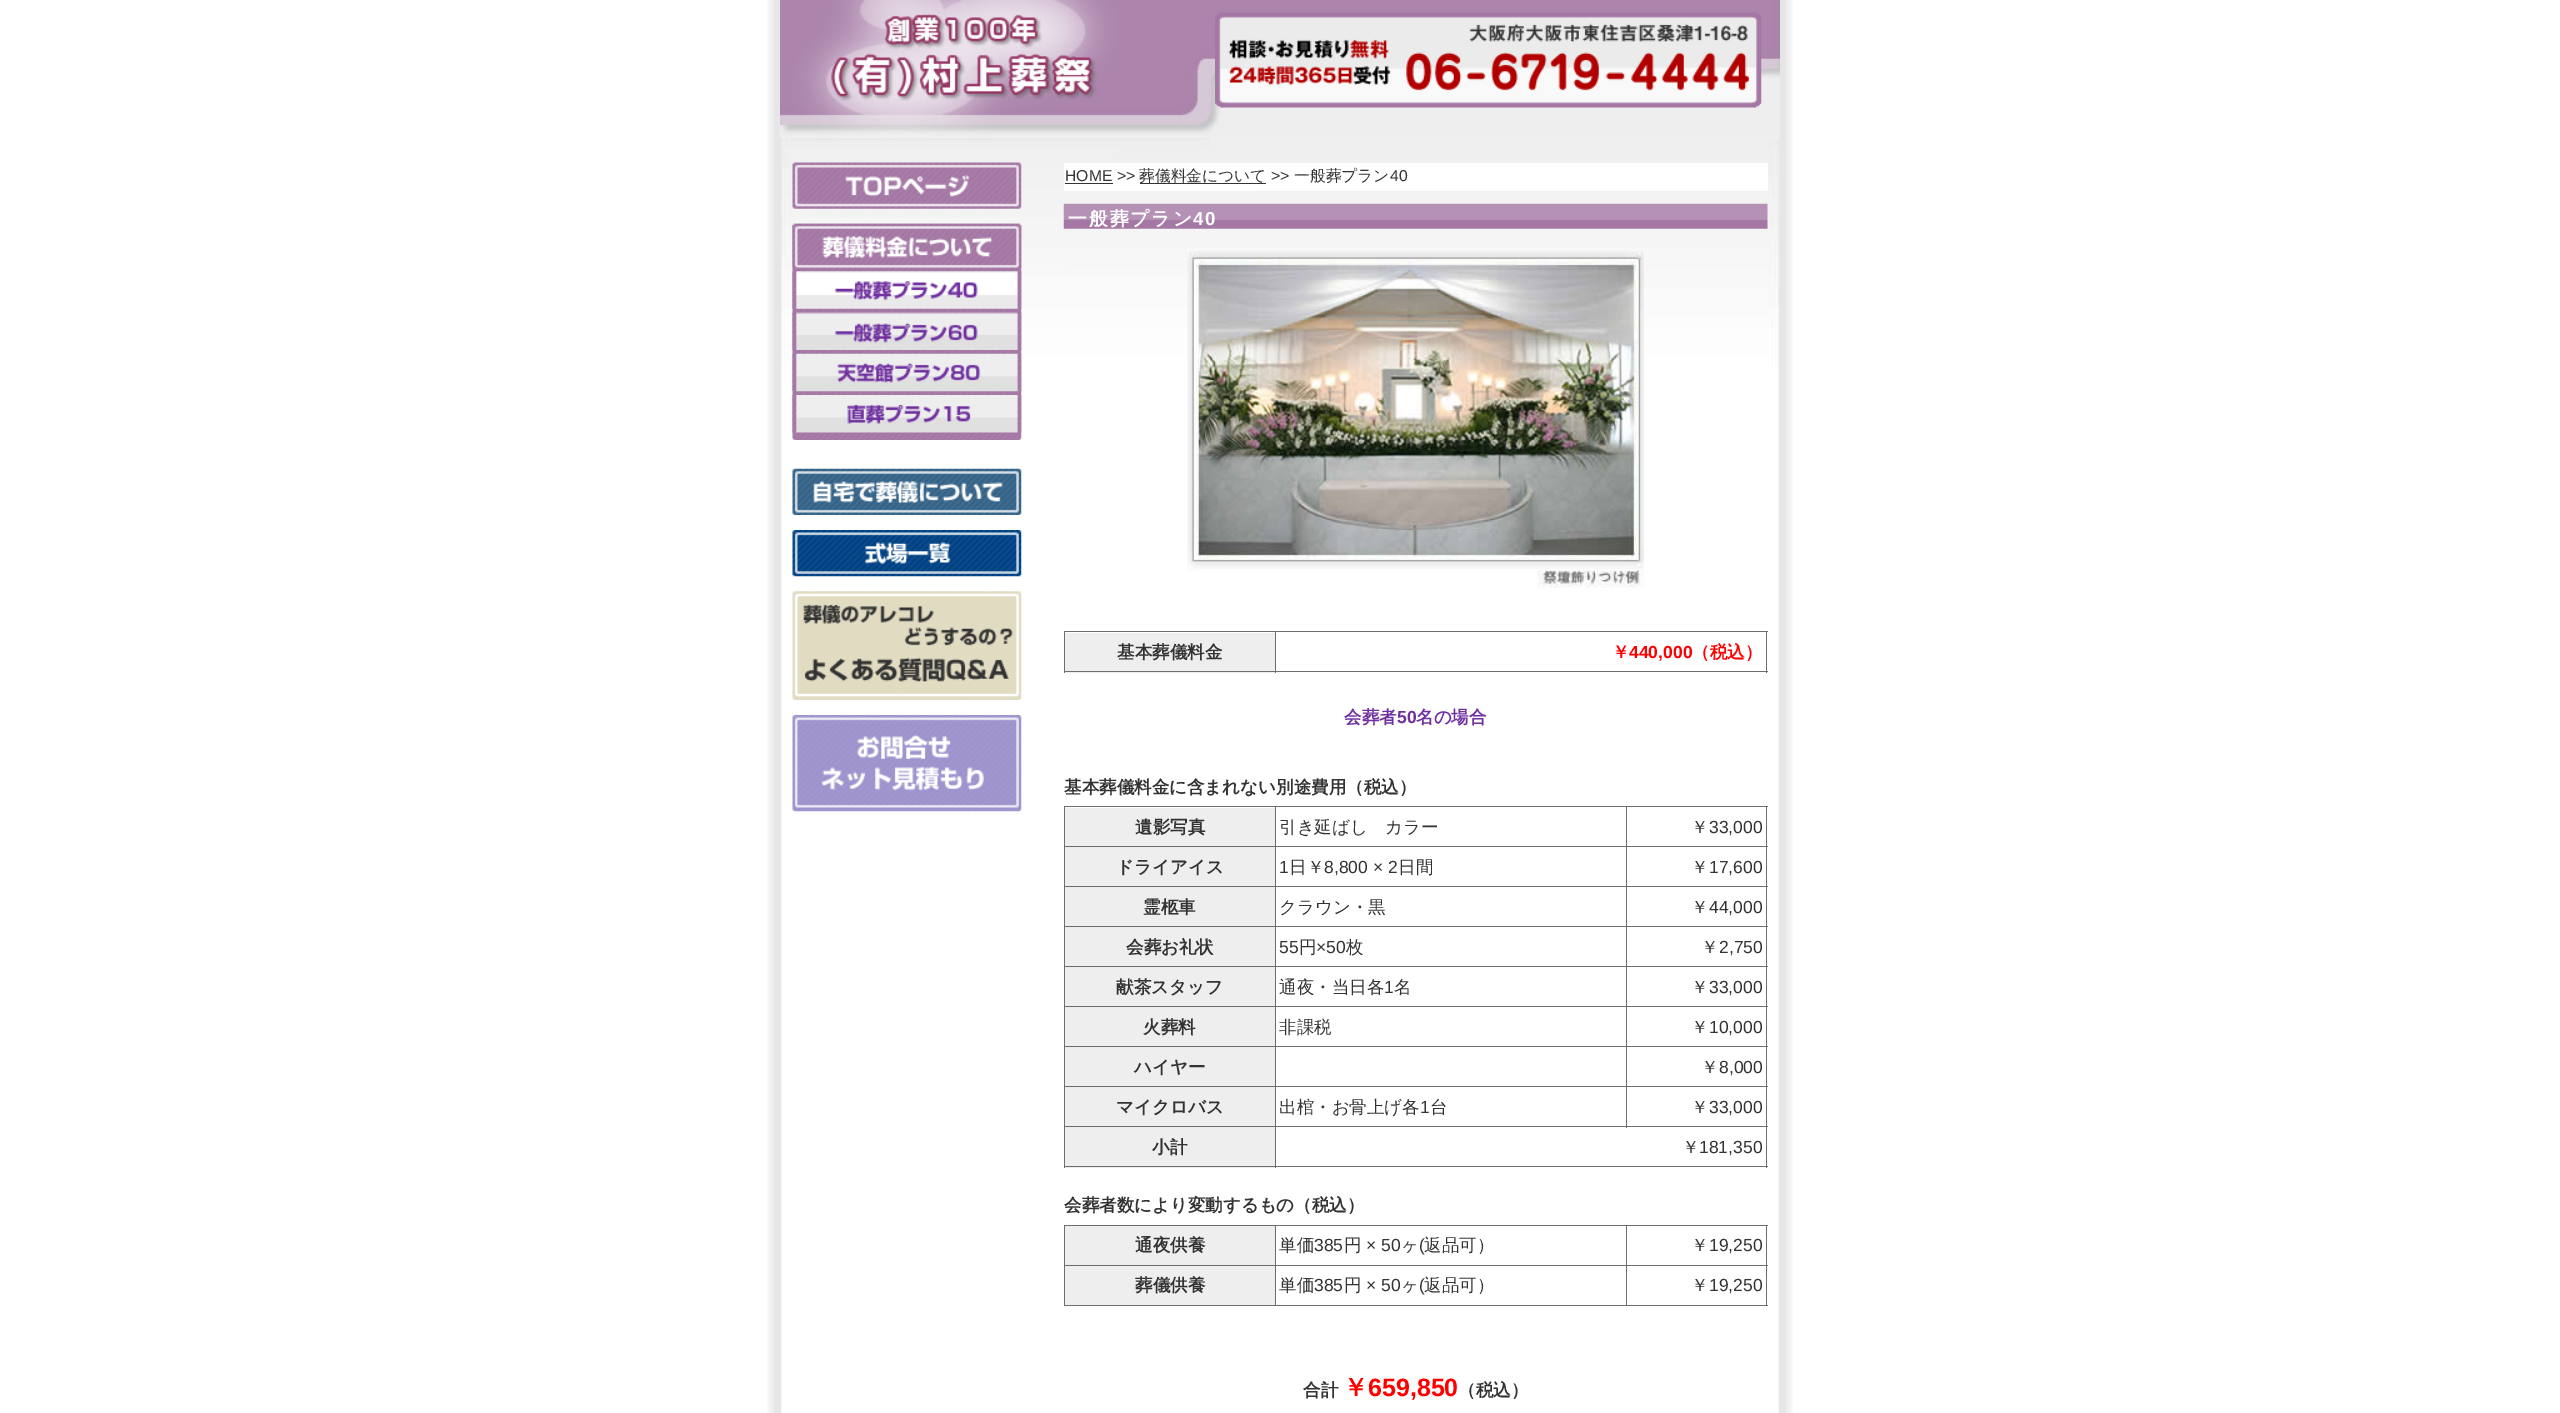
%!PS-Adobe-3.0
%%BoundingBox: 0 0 2560 1413
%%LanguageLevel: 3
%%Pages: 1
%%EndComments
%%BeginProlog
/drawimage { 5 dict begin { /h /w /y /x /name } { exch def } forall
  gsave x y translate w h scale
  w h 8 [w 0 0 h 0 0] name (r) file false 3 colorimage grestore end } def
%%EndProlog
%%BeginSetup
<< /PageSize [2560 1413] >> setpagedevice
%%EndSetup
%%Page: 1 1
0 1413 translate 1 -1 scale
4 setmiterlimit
1 setgray
0 0 2560 1413 rectfill
(images/1.raw) 767 0 1026 1413 drawimage
(images/4.raw) 781 137 999 230 drawimage
(images/2.raw) 780 0 1000 138 drawimage
(images/3.raw) 1215 12 547 96 drawimage
(images/5.raw) 792 162 230 47 drawimage
(images/6.raw) 792 223 230 217 drawimage
(images/7.raw) 792 223 230 45 drawimage
(images/8.raw) 792 271 230 38 drawimage
(images/9.raw) 792 312 230 38 drawimage
(images/10.raw) 792 353 230 39 drawimage
(images/11.raw) 792 395 230 38 drawimage
(images/12.raw) 792 468 230 47 drawimage
(images/13.raw) 792 530 230 47 drawimage
(images/14.raw) 792 591 230 109 drawimage
(images/15.raw) 792 715 230 97 drawimage
1064 163 704 28 rectfill
0.2 setgray
1065 183 48 1 rectfill
1140 183 126 1 rectfill
(images/16.raw) 1063 203 705 26 drawimage
(images/17.raw) 1187 250 457 338 drawimage
0.431 setgray
1064 631 704 1 rectfill
1766 631 1 42 rectfill
0.933 setgray
1065 633 210 40 rectfill
0.431 setgray
1064 671 704 1 rectfill
1064 631 1 42 rectfill
1275 631 1 42 rectfill
1064 806 704 1 rectfill
1766 806 1 362 rectfill
0.933 setgray
1065 808 210 360 rectfill
0.431 setgray
1064 1166 704 1 rectfill
1064 806 1 362 rectfill
1626 846 142 1 rectfill
1626 886 142 1 rectfill
1626 926 142 1 rectfill
1626 966 142 1 rectfill
1626 1006 142 1 rectfill
1626 1046 142 1 rectfill
1626 1086 142 1 rectfill
1275 1126 493 1 rectfill
1626 1086 1 42 rectfill
1275 1086 353 1 rectfill
1626 1046 1 42 rectfill
1275 1046 353 1 rectfill
1626 1006 1 42 rectfill
1275 1006 353 1 rectfill
1626 966 1 42 rectfill
1275 966 353 1 rectfill
1626 926 1 42 rectfill
1275 926 353 1 rectfill
1626 886 1 42 rectfill
1275 886 353 1 rectfill
1626 846 1 42 rectfill
1275 846 353 1 rectfill
1275 1126 1 42 rectfill
1064 1126 212 1 rectfill
1275 1086 1 42 rectfill
1064 1086 212 1 rectfill
1275 1046 1 42 rectfill
1064 1046 212 1 rectfill
1275 1006 1 42 rectfill
1064 1006 212 1 rectfill
1275 966 1 42 rectfill
1064 966 212 1 rectfill
1275 926 1 42 rectfill
1064 926 212 1 rectfill
1275 886 1 42 rectfill
1064 886 212 1 rectfill
1275 846 1 42 rectfill
1064 846 212 1 rectfill
1275 806 1 42 rectfill
1626 806 1 42 rectfill
1064 1225 704 1 rectfill
1766 1225 1 81 rectfill
1064 1305 704 1 rectfill
1064 1225 1 81 rectfill
0.933 setgray
1065 1226 210 39 rectfill
0.431 setgray
1626 1265 142 1 rectfill
1626 1265 1 41 rectfill
1275 1265 353 1 rectfill
1275 1265 1 41 rectfill
1064 1265 212 1 rectfill
1275 1225 1 41 rectfill
1626 1225 1 41 rectfill
0.933 setgray
1065 1266 210 39 rectfill
/LiberationSans-Regular [15.75 0 0 -15.75 0 0] selectfont
0.2 setgray
1065 181 moveto (HOME >>) show
/WenQuanYiZenHei-Medium [15.75 0 0 -15.75 0 0] selectfont
1139 181 moveto (葬儀料金について) show
/LiberationSans-Regular [15.75 0 0 -15.75 0 0] selectfont
1271 181 moveto (>>) show
/WenQuanYiZenHei-Medium [15.75 0 0 -15.75 0 0] selectfont
1294 181 moveto (一般葬プラン) show
/LiberationSans-Regular [15.75 0 0 -15.75 0 0] selectfont
1390 181 moveto (40) show
/WenQuanYiZenHei-Bold [18.75 0 0 -18.75 0 0] selectfont
1 setgray
1068 225 moveto 2 0 (一般葬プラン) ashow
/LiberationSans-Bold [18.75 0 0 -18.75 0 0] selectfont
1193 225 moveto 2 0 (40) ashow
/WenQuanYiZenHei-Bold [17.5 0 0 -17.5 0 0] selectfont
0.2 setgray
1117 658 moveto (基本葬儀料金) show
1 0 0 setrgbcolor
1612 658 moveto (￥) show
/LiberationSans-Bold [17.5 0 0 -17.5 0 0] selectfont
1629 658 moveto (440,000) show
/WenQuanYiZenHei-Bold [17.5 0 0 -17.5 0 0] selectfont
1692 658 moveto (（税込）) show
0.439 0.188 0.627 setrgbcolor
1344 723 moveto (会葬者) show
/LiberationSans-Bold [17.5 0 0 -17.5 0 0] selectfont
1397 723 moveto (50) show
/WenQuanYiZenHei-Bold [17.5 0 0 -17.5 0 0] selectfont
1416 723 moveto (名の場合) show
0.2 setgray
1064 793 moveto (基本葬儀料金に含まれない別途費用（税込）) show
1135 833 moveto (遺影写真) show
/WenQuanYiZenHei-Medium [17.5 0 0 -17.5 0 0] selectfont
1279 833 moveto (引き延ばし　カラー) show
1691 833 moveto (￥) show
/LiberationSans-Regular [17.5 0 0 -17.5 0 0] selectfont
1709 833 moveto (33,000) show
/WenQuanYiZenHei-Bold [17.5 0 0 -17.5 0 0] selectfont
1116 873 moveto (ドライアイス) show
/LiberationSans-Regular [17.5 0 0 -17.5 0 0] selectfont
1279 873 moveto (1) show
/WenQuanYiZenHei-Medium [17.5 0 0 -17.5 0 0] selectfont
1289 873 moveto (日￥) show
/LiberationSans-Regular [17.5 0 0 -17.5 0 0] selectfont
1324 873 moveto (8,800 × 2) show
/WenQuanYiZenHei-Medium [17.5 0 0 -17.5 0 0] selectfont
1398 873 moveto (日間) show
1691 873 moveto (￥) show
/LiberationSans-Regular [17.5 0 0 -17.5 0 0] selectfont
1709 873 moveto (17,600) show
/WenQuanYiZenHei-Bold [17.5 0 0 -17.5 0 0] selectfont
1143 913 moveto (霊柩車) show
/WenQuanYiZenHei-Medium [17.5 0 0 -17.5 0 0] selectfont
1279 913 moveto (クラウン・黒) show
1691 913 moveto (￥) show
/LiberationSans-Regular [17.5 0 0 -17.5 0 0] selectfont
1709 913 moveto (44,000) show
/WenQuanYiZenHei-Bold [17.5 0 0 -17.5 0 0] selectfont
1126 953 moveto (会葬お礼状) show
/LiberationSans-Regular [17.5 0 0 -17.5 0 0] selectfont
1279 953 moveto (55) show
/WenQuanYiZenHei-Medium [17.5 0 0 -17.5 0 0] selectfont
1299 953 moveto (円) show
/LiberationSans-Regular [17.5 0 0 -17.5 0 0] selectfont
1316 953 moveto (×50) show
/WenQuanYiZenHei-Medium [17.5 0 0 -17.5 0 0] selectfont
1346 953 moveto (枚) show
1701 953 moveto (￥) show
/LiberationSans-Regular [17.5 0 0 -17.5 0 0] selectfont
1719 953 moveto (2,750) show
/WenQuanYiZenHei-Bold [17.5 0 0 -17.5 0 0] selectfont
1116 993 moveto (献茶スタッフ) show
/WenQuanYiZenHei-Medium [17.5 0 0 -17.5 0 0] selectfont
1279 993 moveto (通夜・当日各) show
/LiberationSans-Regular [17.5 0 0 -17.5 0 0] selectfont
1384 993 moveto (1) show
/WenQuanYiZenHei-Medium [17.5 0 0 -17.5 0 0] selectfont
1394 993 moveto (名) show
1691 993 moveto (￥) show
/LiberationSans-Regular [17.5 0 0 -17.5 0 0] selectfont
1709 993 moveto (33,000) show
/WenQuanYiZenHei-Bold [17.5 0 0 -17.5 0 0] selectfont
1143 1033 moveto (火葬料) show
/WenQuanYiZenHei-Medium [17.5 0 0 -17.5 0 0] selectfont
1279 1033 moveto (非課税) show
1691 1033 moveto (￥) show
/LiberationSans-Regular [17.5 0 0 -17.5 0 0] selectfont
1709 1033 moveto (10,000) show
/WenQuanYiZenHei-Bold [17.5 0 0 -17.5 0 0] selectfont
1134 1073 moveto (ハイヤー) show
/WenQuanYiZenHei-Medium [17.5 0 0 -17.5 0 0] selectfont
1701 1073 moveto (￥) show
/LiberationSans-Regular [17.5 0 0 -17.5 0 0] selectfont
1719 1073 moveto (8,000) show
/WenQuanYiZenHei-Bold [17.5 0 0 -17.5 0 0] selectfont
1116 1113 moveto (マイクロバス) show
/WenQuanYiZenHei-Medium [17.5 0 0 -17.5 0 0] selectfont
1279 1113 moveto (出棺・お骨上げ各) show
/LiberationSans-Regular [17.5 0 0 -17.5 0 0] selectfont
1420 1113 moveto (1) show
/WenQuanYiZenHei-Medium [17.5 0 0 -17.5 0 0] selectfont
1430 1113 moveto (台) show
1691 1113 moveto (￥) show
/LiberationSans-Regular [17.5 0 0 -17.5 0 0] selectfont
1709 1113 moveto (33,000) show
/WenQuanYiZenHei-Bold [17.5 0 0 -17.5 0 0] selectfont
1152 1153 moveto (小計) show
/WenQuanYiZenHei-Medium [17.5 0 0 -17.5 0 0] selectfont
1682 1153 moveto (￥) show
/LiberationSans-Regular [17.5 0 0 -17.5 0 0] selectfont
1699 1153 moveto (181,350) show
/WenQuanYiZenHei-Bold [17.5 0 0 -17.5 0 0] selectfont
1064 1211 moveto (会葬者数により変動するもの（税込）) show
1135 1251 moveto (通夜供養) show
/WenQuanYiZenHei-Medium [17.5 0 0 -17.5 0 0] selectfont
1279 1251 moveto (単価) show
/LiberationSans-Regular [17.5 0 0 -17.5 0 0] selectfont
1314 1251 moveto (385) show
/WenQuanYiZenHei-Medium [17.5 0 0 -17.5 0 0] selectfont
1344 1251 moveto (円) show
/LiberationSans-Regular [17.5 0 0 -17.5 0 0] selectfont
1366 1251 moveto (× 50) show
/WenQuanYiZenHei-Medium [17.5 0 0 -17.5 0 0] selectfont
1401 1251 moveto (ヶ) show
/LiberationSans-Regular [17.5 0 0 -17.5 0 0] selectfont
1419 1251 moveto (\() show
/WenQuanYiZenHei-Medium [17.5 0 0 -17.5 0 0] selectfont
1424 1251 moveto (返品可）) show
1691 1251 moveto (￥) show
/LiberationSans-Regular [17.5 0 0 -17.5 0 0] selectfont
1709 1251 moveto (19,250) show
/WenQuanYiZenHei-Bold [17.5 0 0 -17.5 0 0] selectfont
1135 1291 moveto (葬儀供養) show
/WenQuanYiZenHei-Medium [17.5 0 0 -17.5 0 0] selectfont
1279 1291 moveto (単価) show
/LiberationSans-Regular [17.5 0 0 -17.5 0 0] selectfont
1314 1291 moveto (385) show
/WenQuanYiZenHei-Medium [17.5 0 0 -17.5 0 0] selectfont
1344 1291 moveto (円) show
/LiberationSans-Regular [17.5 0 0 -17.5 0 0] selectfont
1366 1291 moveto (× 50) show
/WenQuanYiZenHei-Medium [17.5 0 0 -17.5 0 0] selectfont
1401 1291 moveto (ヶ) show
/LiberationSans-Regular [17.5 0 0 -17.5 0 0] selectfont
1419 1291 moveto (\() show
/WenQuanYiZenHei-Medium [17.5 0 0 -17.5 0 0] selectfont
1424 1291 moveto (返品可）) show
1691 1291 moveto (￥) show
/LiberationSans-Regular [17.5 0 0 -17.5 0 0] selectfont
1709 1291 moveto (19,250) show
/WenQuanYiZenHei-Bold [17.5 0 0 -17.5 0 0] selectfont
1303 1396 moveto (合計) show
/WenQuanYiZenHei-Bold [25 0 0 -25 0 0] selectfont
1 0 0 setrgbcolor
1343 1396 moveto (￥) show
/LiberationSans-Bold [25 0 0 -25 0 0] selectfont
1368 1396 moveto (659,850) show
/WenQuanYiZenHei-Bold [17.5 0 0 -17.5 0 0] selectfont
0.2 setgray
1458 1396 moveto (（税込）) show
showpage
%%EOF
